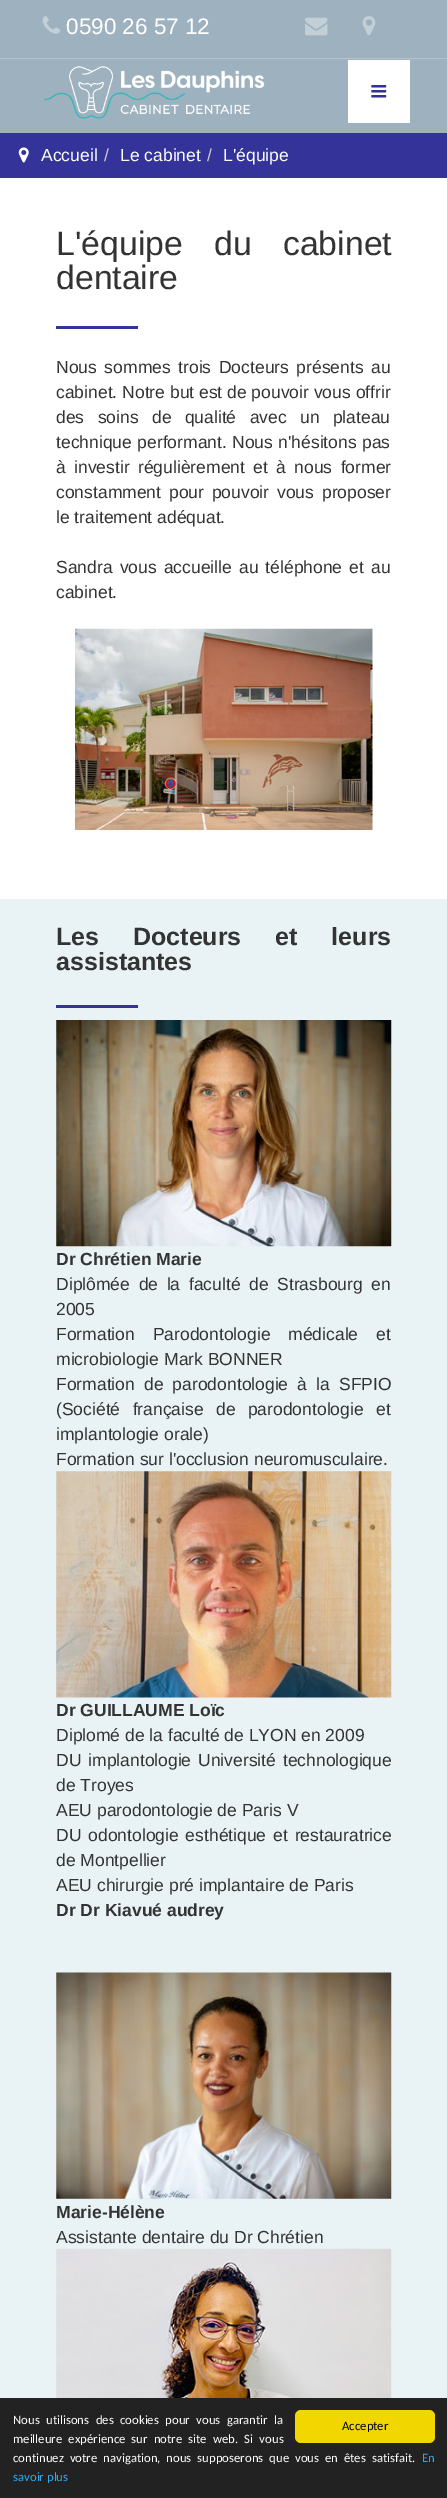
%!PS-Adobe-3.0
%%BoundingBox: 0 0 447 2498
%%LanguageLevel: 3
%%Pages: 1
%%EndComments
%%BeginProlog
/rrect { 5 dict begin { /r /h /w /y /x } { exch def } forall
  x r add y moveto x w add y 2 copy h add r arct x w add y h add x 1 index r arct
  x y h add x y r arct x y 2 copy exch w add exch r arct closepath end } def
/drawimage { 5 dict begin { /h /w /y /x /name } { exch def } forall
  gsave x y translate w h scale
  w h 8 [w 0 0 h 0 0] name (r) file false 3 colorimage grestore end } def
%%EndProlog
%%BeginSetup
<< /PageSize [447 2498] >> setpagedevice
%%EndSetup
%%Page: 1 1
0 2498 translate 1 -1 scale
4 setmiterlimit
1 setgray
0 0 447 2498 rectfill
0.616 0.694 0.745 setrgbcolor
0 0 447 58 rectfill
0.706 0.765 0.804 setrgbcolor
0 58 447 1 rectfill
(images/1.raw) 42 16 19 18 drawimage
(images/2.raw) 305 17 23 19 drawimage
(images/3.raw) 362 16 14 20 drawimage
0.616 0.694 0.745 setrgbcolor
0 59 447 74 rectfill
(images/4.raw) 44 66 221 53 drawimage
1 setgray
348 60 62 63 rectfill
(images/5.raw) 371 85 16 13 drawimage
0.2 0.2 0.6 setrgbcolor
0 133 447 45 rectfill
(images/6.raw) 18 147 11 16 drawimage
56 326 82 3 rectfill
(images/7.raw) 75 628 298 202 drawimage
0.914 0.953 0.965 setrgbcolor
0 899 447 1499 rectfill
0.2 0.2 0.6 setrgbcolor
56 1005 82 3 rectfill
(images/8.raw) 56 1020 336 227 drawimage
(images/9.raw) 56 1471 336 227 drawimage
(images/10.raw) 56 1972 336 227 drawimage
(images/11.raw) 56 2248 336 150 drawimage
0.133 setgray
0 2398 447 100 rectfill
0.945 0.839 0 setrgbcolor
295 2410 140 33 6 rrect fill
/LiberationSans-Regular [22.5 0 0 -22.5 0 0] selectfont
1 setgray
66 34 moveto (0590 26 57 12) show
/LiberationSans-Regular [17.5 0 0 -17.5 0 0] selectfont
41 161 moveto (Accueil) show
0.8 setgray
104 161 moveto (/) show
1 setgray
120 161 moveto (Le cabinet) show
0.8 setgray
207 161 moveto (/) show
1 setgray
223 161 moveto (L'équipe) show
/LiberationSans-Regular [33.75 0 0 -33.75 0 0] selectfont
0.2 setgray
56 255 moveto 22 0 32 (L'équipe du cabinet) widthshow
56 289 moveto (dentaire) show
/LiberationSans-Regular [17.5 0 0 -17.5 0 0] selectfont
56 373 moveto 2.75 0 32 (Nous sommes trois Docteurs présents au) widthshow
56 398 moveto (cabinet. Notre but est de pouvoir vous offrir) show
56 423 moveto 8.5 0 32 (des soins de qualité avec un plateau) widthshow
56 448 moveto 0.5 0 32 (technique performant. Nous n'hésitons pas) widthshow
56 473 moveto 3.5 0 32 (à investir régulièrement et à nous former) widthshow
56 498 moveto 3 0 32 (constamment pour pouvoir vous proposer) widthshow
56 523 moveto (le traitement adéquat.) show
56 573 moveto 2.25 0 32 (Sandra vous accueille au téléphone et au) widthshow
56 598 moveto (cabinet.) show
/LiberationSans-Bold [25 0 0 -25 0 0] selectfont
56 945 moveto 27 0 32 (Les Docteurs et leurs) widthshow
56 970 moveto (assistantes) show
/LiberationSans-Bold [17.5 0 0 -17.5 0 0] selectfont
56 1265 moveto (Dr Chrétien Marie) show
/LiberationSans-Regular [17.5 0 0 -17.5 0 0] selectfont
56 1290 moveto 3.75 0 32 (Diplômée de la faculté de Strasbourg en) widthshow
56 1315 moveto (2005) show
56 1340 moveto 13 0 32 (Formation Parodontologie médicale et) widthshow
56 1365 moveto (microbiologie Mark BONNER) show
56 1390 moveto 4.25 0 32 (Formation de parodontologie à la SFPIO) widthshow
56 1415 moveto 7.5 0 32 (\(Société française de parodontologie et) widthshow
56 1440 moveto (implantologie orale\)) show
56 1465 moveto (Formation sur l'occlusion neuromusculaire.) show
/LiberationSans-Bold [17.5 0 0 -17.5 0 0] selectfont
56 1716 moveto (Dr GUILLAUME Loïc) show
/LiberationSans-Regular [17.5 0 0 -17.5 0 0] selectfont
56 1741 moveto (Diplomé de la faculté de LYON en 2009) show
56 1766 moveto 2 0 32 (DU implantologie Université technologique) widthshow
56 1791 moveto (de Troyes) show
56 1816 moveto (AEU parodontologie de Paris V) show
56 1841 moveto 2 0 32 (DU odontologie esthétique et restauratrice) widthshow
56 1866 moveto (de Montpellier) show
56 1891 moveto (AEU chirurgie pré implantaire de Paris) show
/LiberationSans-Bold [17.5 0 0 -17.5 0 0] selectfont
56 1916 moveto (Dr Dr Kiavué audrey) show
56 2218 moveto (Marie-Hélène) show
/LiberationSans-Regular [17.5 0 0 -17.5 0 0] selectfont
56 2243 moveto (Assistante dentaire du Dr Chrétien) show
/Carlito-Regular [12.75 0 0 -12.75 0 0] selectfont
1 setgray
13 2424 moveto 3.5 0 32 (Nous utilisons des cookies pour vous garantir la) widthshow
13 2443 moveto 3.25 0 32 (meilleure expérience sur notre site web. Si vous) widthshow
13 2462 moveto 3 0 32 (continuez votre navigation, nous supposerons que vous en êtes satisfait.) widthshow
0.192 0.659 0.941 setrgbcolor
422 2462 moveto (En) show
13 2481 moveto (savoir plus) show
0 setgray
342 2430 moveto (Accepter) show
showpage
%%EOF
